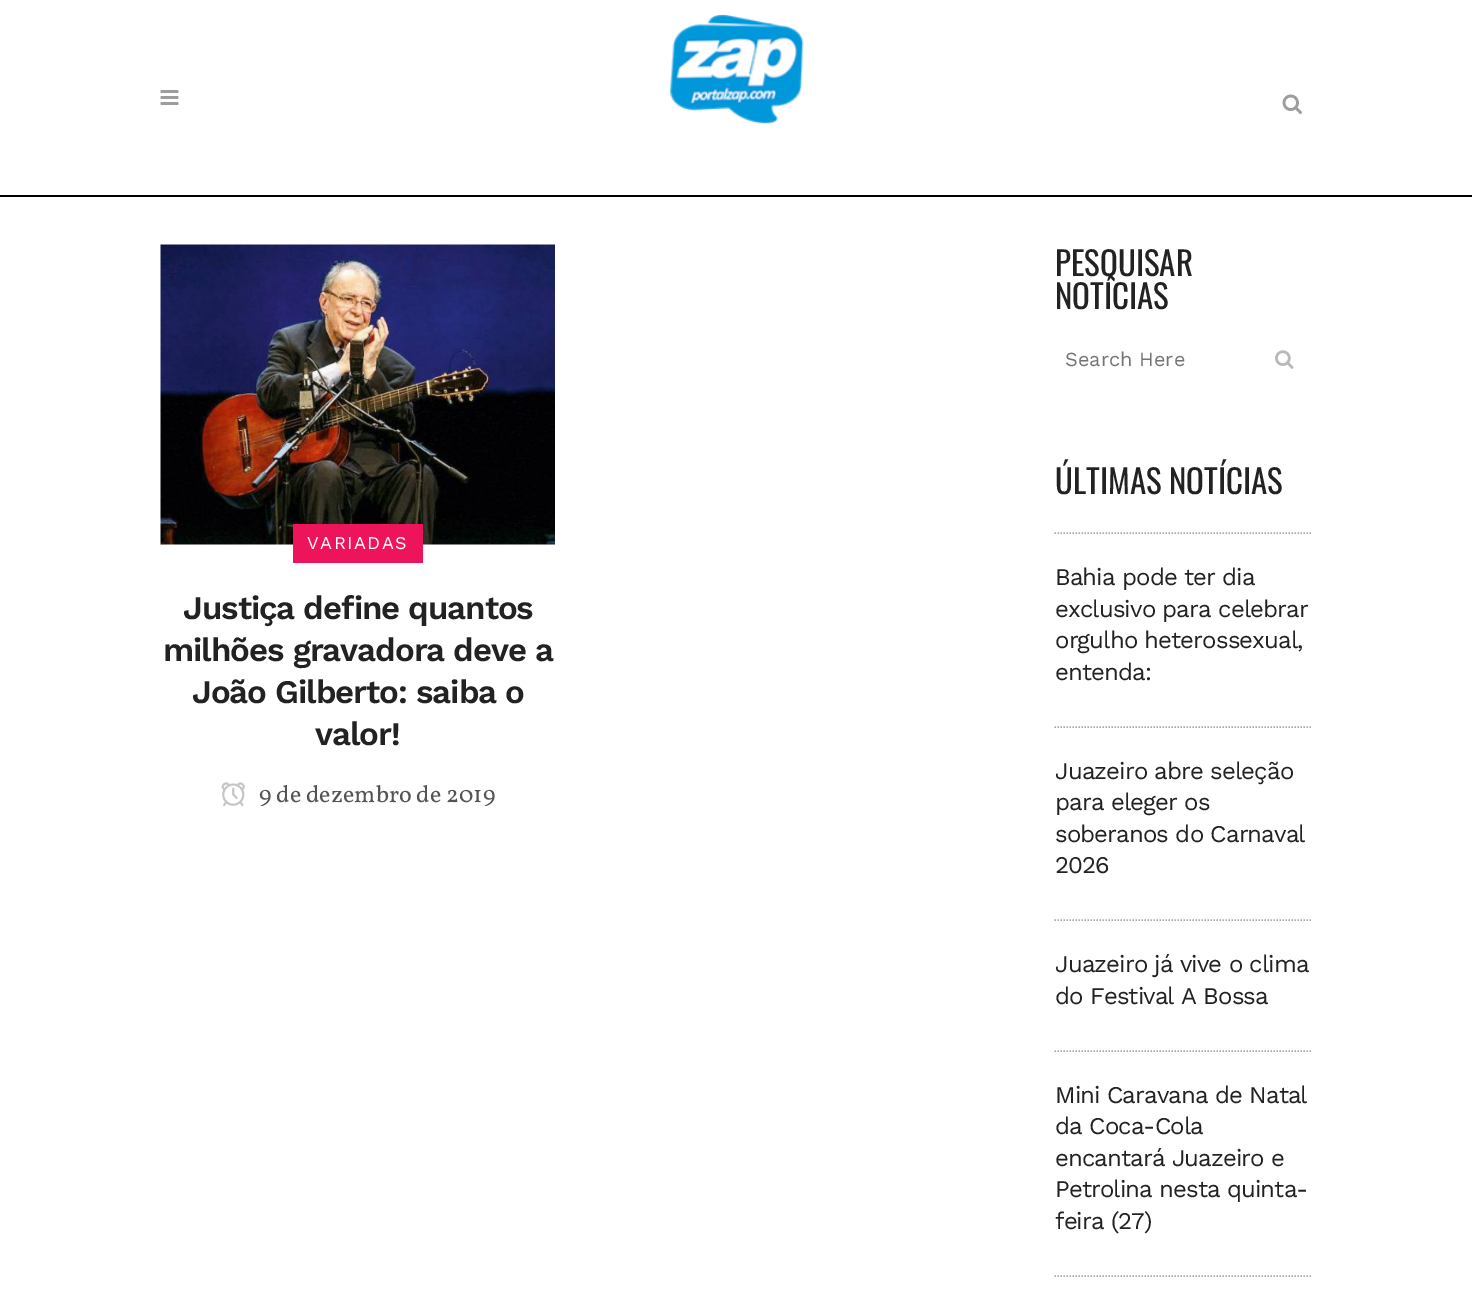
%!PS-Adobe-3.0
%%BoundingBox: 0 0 1472 1301
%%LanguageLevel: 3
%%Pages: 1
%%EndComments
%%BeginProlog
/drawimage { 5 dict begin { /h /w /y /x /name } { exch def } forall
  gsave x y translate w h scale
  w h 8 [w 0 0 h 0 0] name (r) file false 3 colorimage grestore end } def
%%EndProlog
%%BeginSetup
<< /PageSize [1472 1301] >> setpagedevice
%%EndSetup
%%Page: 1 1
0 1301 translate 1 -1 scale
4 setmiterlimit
1 setgray
0 0 1472 1301 rectfill
0 setgray
0 195 1472 2 rectfill
(images/1.raw) 160 90 19 15 drawimage
(images/2.raw) 670 14 134 110 drawimage
(images/3.raw) 1282 94 20 20 drawimage
(images/4.raw) 160 244 395 301 drawimage
0.929 0.078 0.357 setrgbcolor
293 524 130 39 rectfill
(images/5.raw) 221 782 24 25 drawimage
(images/6.raw) 1275 350 19 19 drawimage
0.663 setgray
1.5 setlinewidth
[1.5 1.5] 0 setdash
newpath 1054.5 533 moveto 1312.5 533 lineto stroke
newpath 1054.5 727 moveto 1312.5 727 lineto stroke
newpath 1054.5 920 moveto 1312.5 920 lineto stroke
newpath 1054.5 1051 moveto 1312.5 1051 lineto stroke
newpath 1054.5 1276 moveto 1312.5 1276 lineto stroke
/WorkSans-Regular [18 0 0 -18 0 0] selectfont
1 setgray
307 549 moveto 1.5 0 (VARIADAS) ashow
/WorkSans-SemiBold [33 0 0 -33 0 0] selectfont
0.133 setgray
183 619 moveto -1.05 0 (Justiça define quantos) ashow
163 661 moveto -1.05 0 (milhões gravadora deve a) ashow
192 703 moveto -1.05 0 (João Gilberto: saiba o) ashow
315 745 moveto -1.05 0 (valor!) ashow
/Vollkorn-Regular [24 0 0 -24 0 0] selectfont
0.329 setgray
259 802 moveto (9 de dezembro de 2019) show
/Oswald-Regular [33 0 0 -33 0 0] selectfont
0.133 setgray
1055 276 moveto (PESQUISAR) show
1055 309 moveto (NOTÍCIAS) show
/WorkSans-Regular [20 0 0 -20 0 0] selectfont
0.459 setgray
1065 366 moveto (Search Here) show
/Oswald-Regular [33 0 0 -33 0 0] selectfont
0.133 setgray
1055 494 moveto (ÚLTIMAS NOTÍCIAS) show
/WorkSans-Regular [24 0 0 -24 0 0] selectfont
1055 585 moveto -0.9 0 (Bahia pode ter dia) ashow
1055 617 moveto -0.9 0 (exclusivo para celebrar) ashow
1055 648 moveto -0.9 0 (orgulho heterossexual,) ashow
1055 680 moveto -0.9 0 (entenda:) ashow
1055 779 moveto -0.9 0 (Juazeiro abre seleção) ashow
1055 810 moveto -0.9 0 (para eleger os) ashow
1055 842 moveto -0.9 0 (soberanos do Carnaval) ashow
1055 873 moveto -0.9 0 (2026) ashow
1055 972 moveto -0.9 0 (Juazeiro já vive o clima) ashow
1055 1004 moveto -0.9 0 (do Festival A Bossa) ashow
1055 1103 moveto -0.9 0 (Mini Caravana de Natal) ashow
1055 1134 moveto -0.9 0 (da Coca-Cola) ashow
1055 1166 moveto -0.9 0 (encantará Juazeiro e) ashow
1055 1197 moveto -0.9 0 (Petrolina nesta quinta-) ashow
1055 1229 moveto -0.9 0 (feira \(27\)) ashow
showpage
%%EOF
